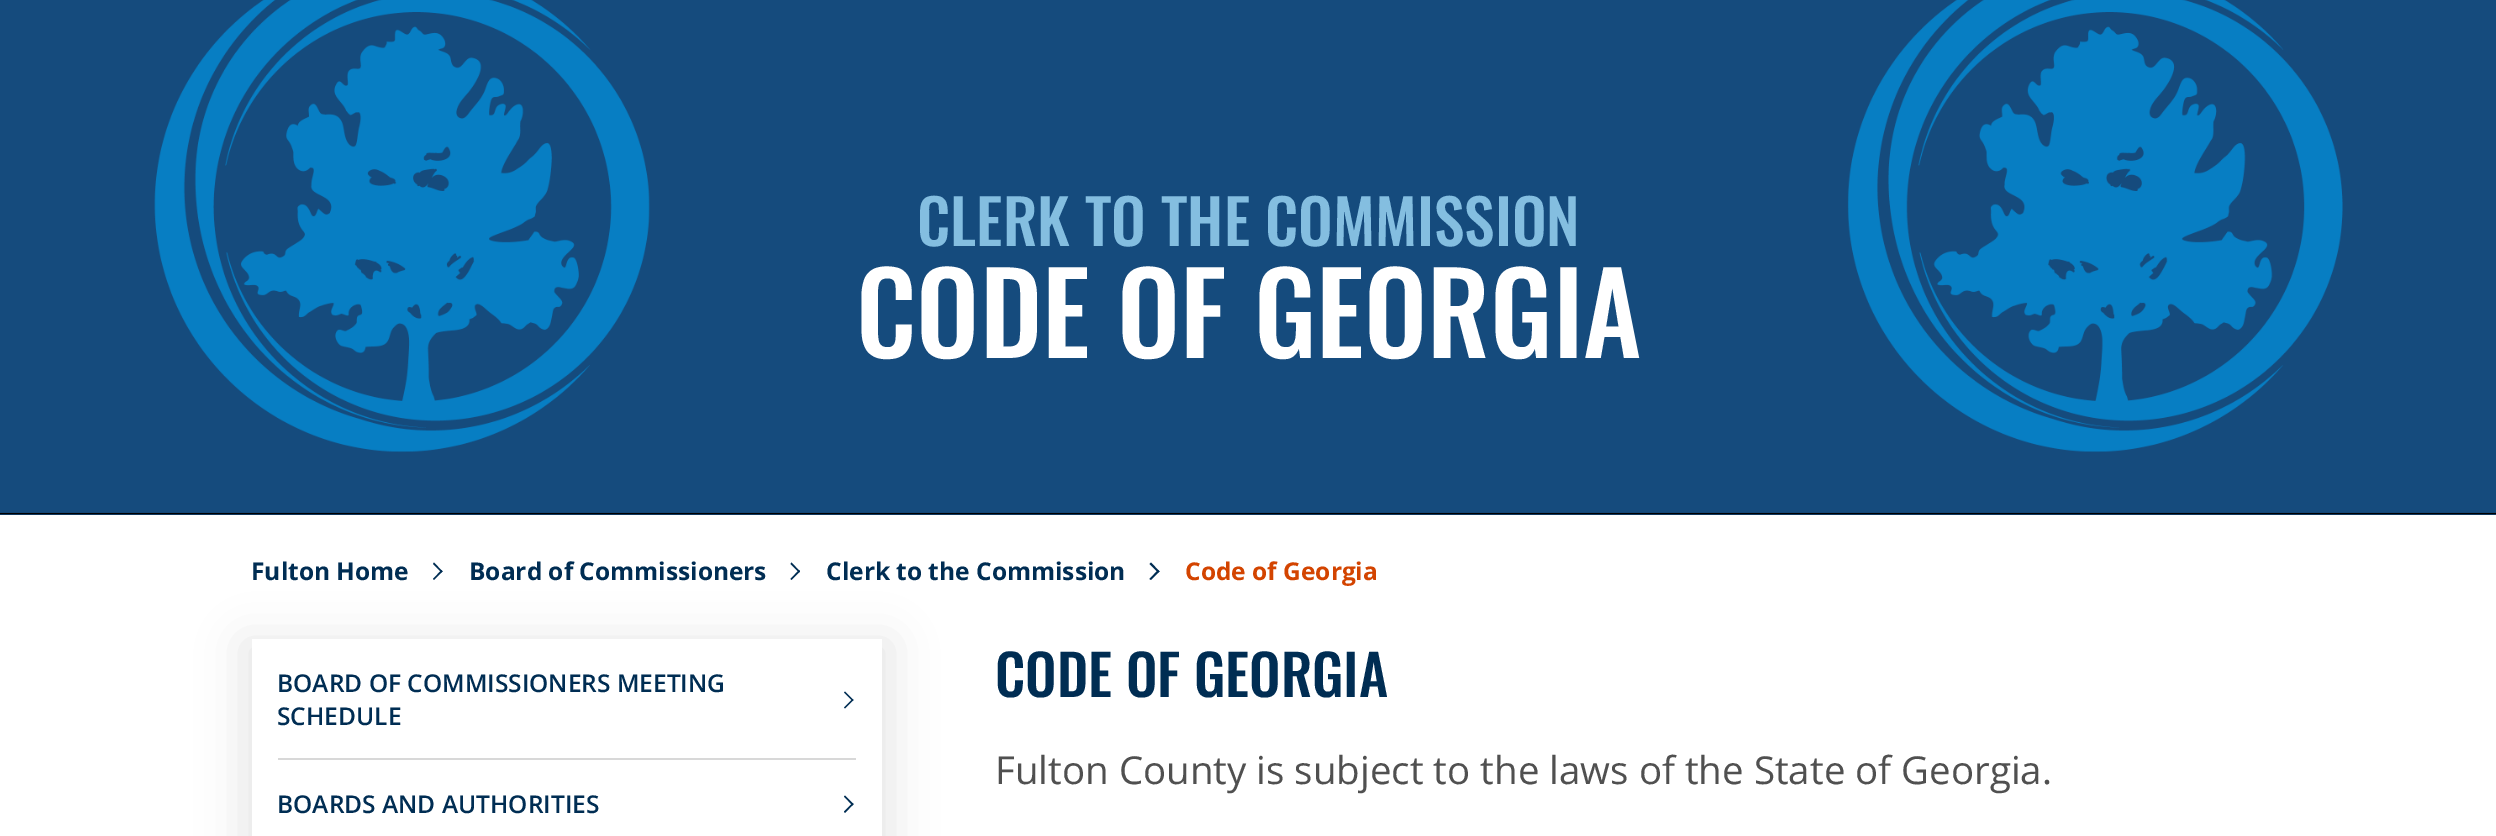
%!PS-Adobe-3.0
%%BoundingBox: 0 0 2496 836
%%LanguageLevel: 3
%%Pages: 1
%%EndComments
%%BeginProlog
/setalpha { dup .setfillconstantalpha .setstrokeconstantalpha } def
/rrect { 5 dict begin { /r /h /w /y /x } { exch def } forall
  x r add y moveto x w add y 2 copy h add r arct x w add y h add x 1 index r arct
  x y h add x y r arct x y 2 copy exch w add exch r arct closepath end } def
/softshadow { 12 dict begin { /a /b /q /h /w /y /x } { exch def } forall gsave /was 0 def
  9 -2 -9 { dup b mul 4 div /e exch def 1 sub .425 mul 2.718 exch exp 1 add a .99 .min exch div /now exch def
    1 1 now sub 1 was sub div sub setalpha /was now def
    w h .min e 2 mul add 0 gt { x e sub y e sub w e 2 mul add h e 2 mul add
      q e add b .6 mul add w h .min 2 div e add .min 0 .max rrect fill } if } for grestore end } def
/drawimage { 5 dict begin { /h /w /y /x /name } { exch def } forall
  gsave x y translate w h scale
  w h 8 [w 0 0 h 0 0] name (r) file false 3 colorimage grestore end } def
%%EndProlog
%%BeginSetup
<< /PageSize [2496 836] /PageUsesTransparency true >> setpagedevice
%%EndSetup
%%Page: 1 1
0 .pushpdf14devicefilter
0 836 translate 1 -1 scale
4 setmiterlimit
1 setgray
0 0 2496 836 rectfill
0.086 0.29 0.486 setrgbcolor
0 514 2496 1 rectfill
(images/1.raw) 0 0 2496 515 drawimage
0 0.176 0.325 setrgbcolor
newpath 434 562.5 moveto 442.5 571.5 lineto 441.5 572.5 lineto 433 564 lineto closepath fill
newpath 441.5 570 moveto 442.5 571.5 lineto 434 580 lineto 433 579 lineto closepath fill
newpath 791.5 562.5 moveto 800 571.5 lineto 799 572.5 lineto 790.5 564 lineto closepath fill
newpath 799 570 moveto 800 571.5 lineto 791.5 580 lineto 790.5 579 lineto closepath fill
newpath 1151 562.5 moveto 1159.5 571.5 lineto 1158 572.5 lineto 1149.5 564 lineto closepath fill
newpath 1158 570 moveto 1159.5 571.5 lineto 1151 580 lineto 1149.5 579 lineto closepath fill
gsave
newpath 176 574 moveto 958 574 lineto 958 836 lineto 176 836 lineto closepath 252 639 moveto 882 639 lineto 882 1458 lineto 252 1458 lineto closepath eoclip newpath
0 setgray
243 641 648 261 0 22 0.1 softshadow
grestore
0.847 setgray
278 758 578 2 rectfill
0 0.176 0.325 setrgbcolor
newpath 845 691.5 moveto 853.5 700 lineto 852.5 701 lineto 844 692.5 lineto closepath fill
newpath 852.5 699 moveto 853.5 700 lineto 845 708.5 lineto 844 707.5 lineto closepath fill
newpath 845 795.5 moveto 853.5 804 lineto 852.5 805.5 lineto 844 796.5 lineto closepath fill
newpath 852.5 803 moveto 853.5 804 lineto 845 813 lineto 844 811.5 lineto closepath fill
/Oswald-Medium [61.6 0 0 -61.6 0 0] selectfont
0.518 0.745 0.878 setrgbcolor
917 246 moveto (CLERK TO THE COMMISSION) show
/Oswald-Medium [112 0 0 -112 0 0] selectfont
1 setgray
856 358 moveto (CODE OF GEORGIA) show
/OpenSans-Bold [24.5 0 0 -24.5 0 0] selectfont
0 0.176 0.325 setrgbcolor
251 580 moveto (Fulton Home) show
469 580 moveto (Board of Commissioners) show
826 580 moveto (Clerk to the Commission) show
0.827 0.267 0 setrgbcolor
1185 580 moveto (Code of Georgia) show
/OpenSans-SemiBold [24.5 0 0 -24.5 0 0] selectfont
0 0.176 0.325 setrgbcolor
277 692 moveto (BOARD OF COMMISSIONERS MEETING) show
277 725 moveto (SCHEDULE) show
277 813 moveto (BOARDS AND AUTHORITIES) show
/Oswald-Medium [56 0 0 -56 0 0] selectfont
995 697 moveto (CODE OF GEORGIA) show
/OpenSans-Regular [38.5 0 0 -38.5 0 0] selectfont
0.314 setgray
995 784 moveto (Fulton County is subject to the laws of the State of Georgia.) show
.poppdf14devicefilter showpage
%%EOF
